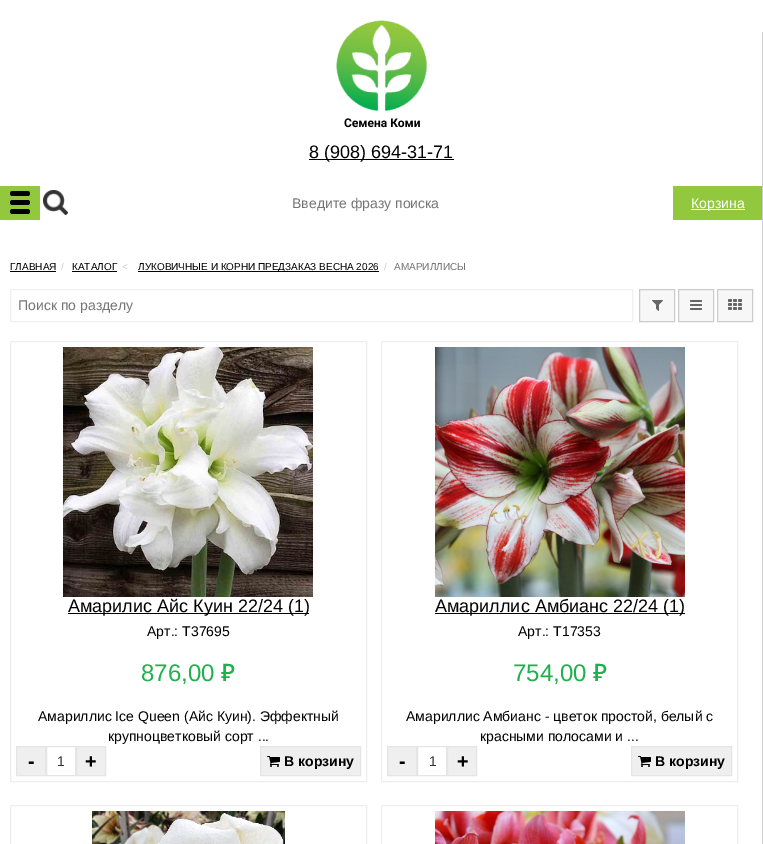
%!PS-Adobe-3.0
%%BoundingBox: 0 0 763 844
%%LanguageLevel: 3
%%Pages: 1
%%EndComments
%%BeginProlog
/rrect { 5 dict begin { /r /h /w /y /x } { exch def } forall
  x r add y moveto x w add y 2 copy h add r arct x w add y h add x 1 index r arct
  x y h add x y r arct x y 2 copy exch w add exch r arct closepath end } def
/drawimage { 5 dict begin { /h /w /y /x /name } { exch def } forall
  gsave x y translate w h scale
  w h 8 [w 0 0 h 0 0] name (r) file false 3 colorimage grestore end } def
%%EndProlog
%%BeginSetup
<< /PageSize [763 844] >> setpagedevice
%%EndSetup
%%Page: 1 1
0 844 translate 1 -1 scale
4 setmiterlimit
1 setgray
0 0 763 844 rectfill
(images/1.raw) 336 20 91 108 drawimage
0 setgray
309 159 145 1 rectfill
0.573 0.784 0.239 setrgbcolor
0 186 40 34 rectfill
0 setgray
10 191 20 5 2.5 rrect fill
10 200 20 5 2.5 rrect fill
10 209 20 5 2.5 rrect fill
(images/2.raw) 43 190 25 25 drawimage
0.573 0.784 0.239 setrgbcolor
673 186 89 34 rectfill
1 setgray
691 209 54 1 rectfill
0 setgray
10 271 46 1 rectfill
72 271 45 1 rectfill
138 271 241 1 rectfill
0.8 setgray
762 32 1 812 rectfill
0.941 setgray
10.5 289.5 622 32 rectstroke
0.969 setgray
newpath 639.5 289.5 moveto 674.5 289.5 lineto 674.5 321.5 lineto 639.5 321.5 lineto closepath gsave fill grestore
0.8 setgray
stroke
(images/3.raw) 652 300 11 11 drawimage
0.969 setgray
newpath 678.5 289.5 moveto 713.5 289.5 lineto 713.5 321.5 lineto 678.5 321.5 lineto closepath gsave fill grestore
0.8 setgray
stroke
(images/4.raw) 690 300 12 10 drawimage
0.969 setgray
newpath 717.5 289.5 moveto 752.5 289.5 lineto 752.5 321.5 lineto 717.5 321.5 lineto closepath gsave fill grestore
0.8 setgray
stroke
(images/5.raw) 728 299 14 11 drawimage
0.933 setgray
10.5 341.5 356 440 rectstroke
(images/6.raw) 63 347 250 250 drawimage
0 setgray
68 613 241 1 rectfill
0.937 setgray
newpath 16.5 746.5 moveto 45.5 746.5 lineto 45.5 775.5 lineto 16.5 775.5 lineto closepath gsave fill grestore
0.898 setgray
stroke
46.5 746.5 29 29 rectstroke
0.937 setgray
newpath 76.5 746.5 moveto 105.5 746.5 lineto 105.5 775.5 lineto 76.5 775.5 lineto closepath gsave fill grestore
0.898 setgray
stroke
0.937 setgray
newpath 260.5 746.5 moveto 360.5 746.5 lineto 360.5 775.5 lineto 260.5 775.5 lineto closepath gsave fill grestore
0.898 setgray
stroke
(images/7.raw) 267 756 13 11 drawimage
0.933 setgray
381.5 341.5 356 440 rectstroke
(images/8.raw) 435 347 250 250 drawimage
0 setgray
435 613 250 1 rectfill
0.937 setgray
newpath 387.5 746.5 moveto 416.5 746.5 lineto 416.5 775.5 lineto 387.5 775.5 lineto closepath gsave fill grestore
0.898 setgray
stroke
417.5 746.5 29 29 rectstroke
0.937 setgray
newpath 447.5 746.5 moveto 476.5 746.5 lineto 476.5 775.5 lineto 447.5 775.5 lineto closepath gsave fill grestore
0.898 setgray
stroke
0.937 setgray
newpath 631.5 746.5 moveto 731.5 746.5 lineto 731.5 775.5 lineto 631.5 775.5 lineto closepath gsave fill grestore
0.898 setgray
stroke
(images/7.raw) 638 756 13 11 drawimage
0.933 setgray
10.5 805.5 356 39 rectstroke
(images/9.raw) 92 811 193 33 drawimage
381.5 805.5 356 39 rectstroke
(images/10.raw) 435 811 250 33 drawimage
/LiberationSans-Regular [18 0 0 -18 0 0] selectfont
0 setgray
309 158 moveto (8 \(908\) 694-31-71) show
/LiberationSans-Regular [14 0 0 -14 0 0] selectfont
0.459 setgray
292 208 moveto (Введите фразу поиска) show
1 setgray
691 208 moveto (Корзина) show
/LiberationSans-Regular [10 0 0 -10 0 0] selectfont
0 setgray
10 270 moveto (ГЛАВНАЯ) show
0.8 setgray
61 270 moveto (/) show
0 setgray
72 270 moveto (КАТАЛОГ) show
0.8 setgray
122 270 moveto (<) show
0 setgray
138 270 moveto (ЛУКОВИЧНЫЕ И КОРНИ ПРЕДЗАКАЗ ВЕСНА 2026) show
0.8 setgray
384 270 moveto (/) show
0.459 setgray
394 270 moveto (АМАРИЛЛИСЫ) show
/LiberationSans-Regular [14 0 0 -14 0 0] selectfont
18 310 moveto (Поиск по разделу) show
/LiberationSans-Regular [18 0 0 -18 0 0] selectfont
0 setgray
68 612 moveto (Амарилис Айс Куин 22/24 \(1\)) show
/LiberationSans-Regular [14 0 0 -14 0 0] selectfont
147 636 moveto (Арт.: Т37695) show
/LiberationSans-Regular [24 0 0 -24 0 0] selectfont
0.118 0.694 0.298 setrgbcolor
141 681 moveto (876,00) show
/NotoSans-Medium [24 0 0 -24 0 0] selectfont
221 681 moveto (₽) show
/LiberationSans-Regular [14 0 0 -14 0 0] selectfont
0 setgray
38 721 moveto (Амариллис Ice Queen \(Айс Куин\). Эффектный) show
108 741 moveto (крупноцветковый сорт ...) show
/LiberationSans-Bold [20 0 0 -20 0 0] selectfont
28 768 moveto (-) show
/LiberationSans-Regular [14 0 0 -14 0 0] selectfont
0.2 setgray
57 766 moveto (1) show
/LiberationSans-Bold [20 0 0 -20 0 0] selectfont
0 setgray
85 768 moveto (+) show
/LiberationSans-Bold [14 0 0 -14 0 0] selectfont
284 766 moveto (В корзину) show
/LiberationSans-Regular [18 0 0 -18 0 0] selectfont
435 612 moveto (Амариллис Амбианс 22/24 \(1\)) show
/LiberationSans-Regular [14 0 0 -14 0 0] selectfont
518 636 moveto (Арт.: Т17353) show
/LiberationSans-Regular [24 0 0 -24 0 0] selectfont
0.118 0.694 0.298 setrgbcolor
513 681 moveto (754,00) show
/NotoSans-Medium [24 0 0 -24 0 0] selectfont
593 681 moveto (₽) show
/LiberationSans-Regular [14 0 0 -14 0 0] selectfont
0 setgray
406 721 moveto (Амариллис Амбианс - цветок простой, белый с) show
480 741 moveto (красными полосами и ...) show
/LiberationSans-Bold [20 0 0 -20 0 0] selectfont
399 768 moveto (-) show
/LiberationSans-Regular [14 0 0 -14 0 0] selectfont
0.2 setgray
429 766 moveto (1) show
/LiberationSans-Bold [20 0 0 -20 0 0] selectfont
0 setgray
457 768 moveto (+) show
/LiberationSans-Bold [14 0 0 -14 0 0] selectfont
655 766 moveto (В корзину) show
showpage
%%EOF
